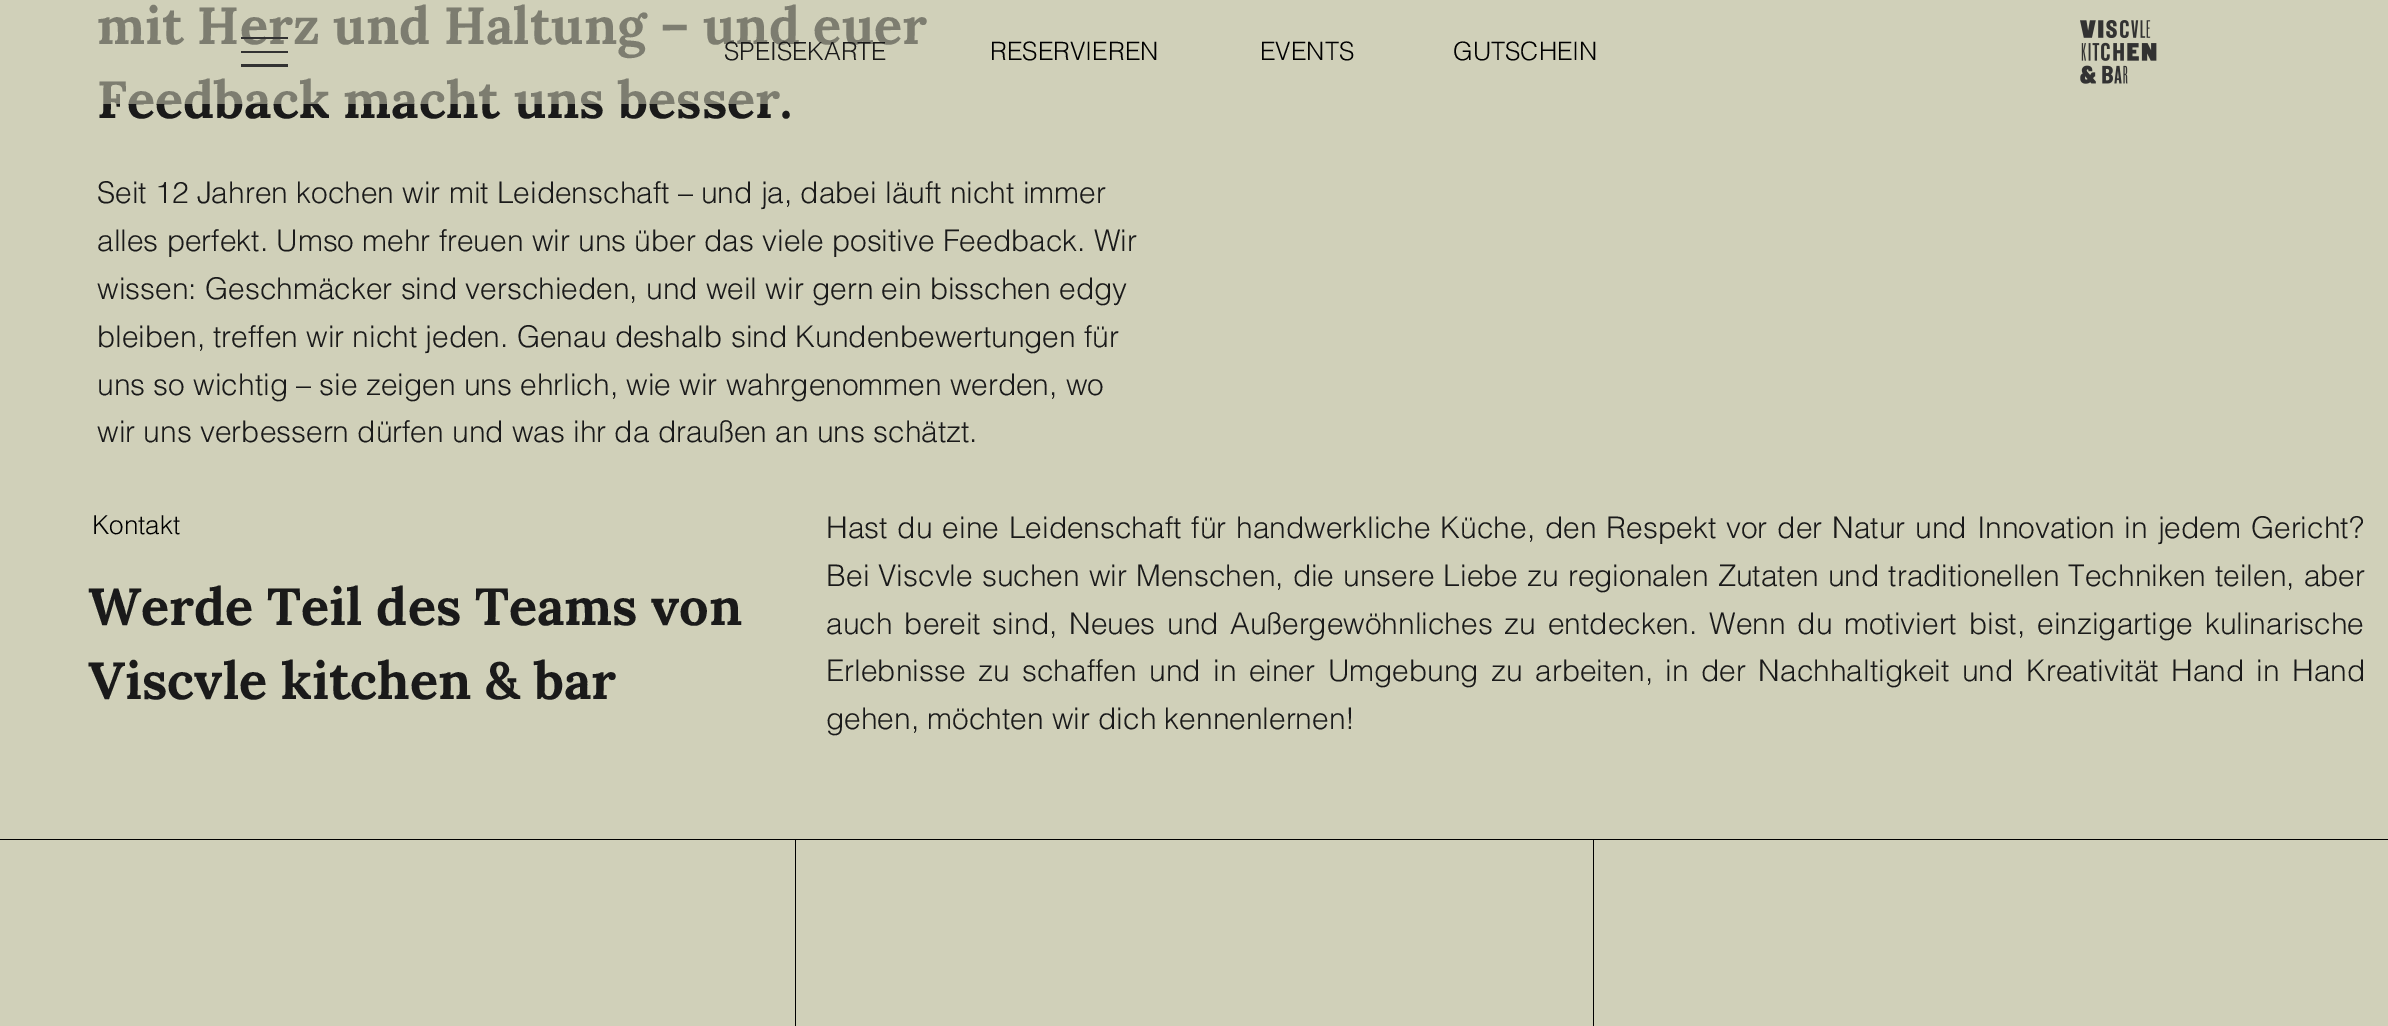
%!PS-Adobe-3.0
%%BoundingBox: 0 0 2388 1026
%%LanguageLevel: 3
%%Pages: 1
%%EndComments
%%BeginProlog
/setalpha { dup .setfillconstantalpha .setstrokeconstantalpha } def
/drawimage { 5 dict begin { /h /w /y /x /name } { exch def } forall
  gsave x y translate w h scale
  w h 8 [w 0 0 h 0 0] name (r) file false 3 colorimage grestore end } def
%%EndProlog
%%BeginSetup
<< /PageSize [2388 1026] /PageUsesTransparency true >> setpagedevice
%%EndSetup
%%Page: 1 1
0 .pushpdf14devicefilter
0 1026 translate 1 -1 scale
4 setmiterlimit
0.816 0.816 0.725 setrgbcolor
0 0 2388 1026 rectfill
0 setgray
0 839 2388 187 rectfill
0.816 0.816 0.725 setrgbcolor
0 840 795 186 rectfill
796 840 797 186 rectfill
1594 840 794 186 rectfill
(images/1.raw) 2080 20 77 64 drawimage
/Lora-Bold [52.25 0 0 -52.25 0 0] selectfont
0.102 setgray
97 44 moveto (mit Herz und Haltung – und euer) show
97 118 moveto (Feedback macht uns besser.) show
/helvetica-Light [29.85 0 0 -29.85 0 0] selectfont
97 203 moveto (Seit 12 Jahren kochen wir mit Leidenschaft – und ja, dabei läuft nicht immer) show
97 251 moveto (alles perfekt. Umso mehr freuen wir uns über das viele positive Feedback. Wir) show
97 299 moveto (wissen: Geschmäcker sind verschieden, und weil wir gern ein bisschen edgy) show
97 347 moveto (bleiben, treffen wir nicht jeden. Genau deshalb sind Kundenbewertungen für) show
97 395 moveto (uns so wichtig – sie zeigen uns ehrlich, wie wir wahrgenommen werden, wo) show
97 442 moveto (wir uns verbessern dürfen und was ihr da draußen an uns schätzt.) show
/helvetica-Light [26 0 0 -26 0 0] selectfont
0 setgray
92 534 moveto (Kontakt) show
/Lora-Bold [52.25 0 0 -52.25 0 0] selectfont
0.102 setgray
88 625 moveto (Werde Teil des Teams von) show
88 699 moveto (Viscvle kitchen & bar) show
/helvetica-Light [29.85 0 0 -29.85 0 0] selectfont
826 538 moveto 1.75 0 32 (Hast du eine Leidenschaft für handwerkliche Küche, den Respekt vor der Natur und Innovation in jedem Gericht?) widthshow
826 586 moveto 0.75 0 32 (Bei Viscvle suchen wir Menschen, die unsere Liebe zu regionalen Zutaten und traditionellen Techniken teilen, aber) widthshow
826 634 moveto 3.6 0 32 (auch bereit sind, Neues und Außergewöhnliches zu entdecken. Wenn du motiviert bist, einzigartige kulinarische) widthshow
826 681 moveto 4.25 0 32 (Erlebnisse zu schaffen und in einer Umgebung zu arbeiten, in der Nachhaltigkeit und Kreativität Hand in Hand) widthshow
826 729 moveto (gehen, möchten wir dich kennenlernen!) show
0.32 setalpha
0.816 0.816 0.725 setrgbcolor
99 4 829 100 rectfill
99 4 829 100 rectfill
1 setalpha
0.196 setgray
241 37 47 2 rectfill
241 51 47 2 rectfill
241 64 47 3 rectfill
/helvetica-Light [25 0 0 -25 0 0] selectfont
0.102 setgray
724 60 moveto (SPEISEKARTE) show
/helvetica-Light [25.25 0 0 -25.25 0 0] selectfont
0 setgray
990 60 moveto (RESERVIEREN) show
1260 60 moveto (EVENTS) show
1453 60 moveto (GUTSCHEIN) show
.poppdf14devicefilter showpage
%%EOF
